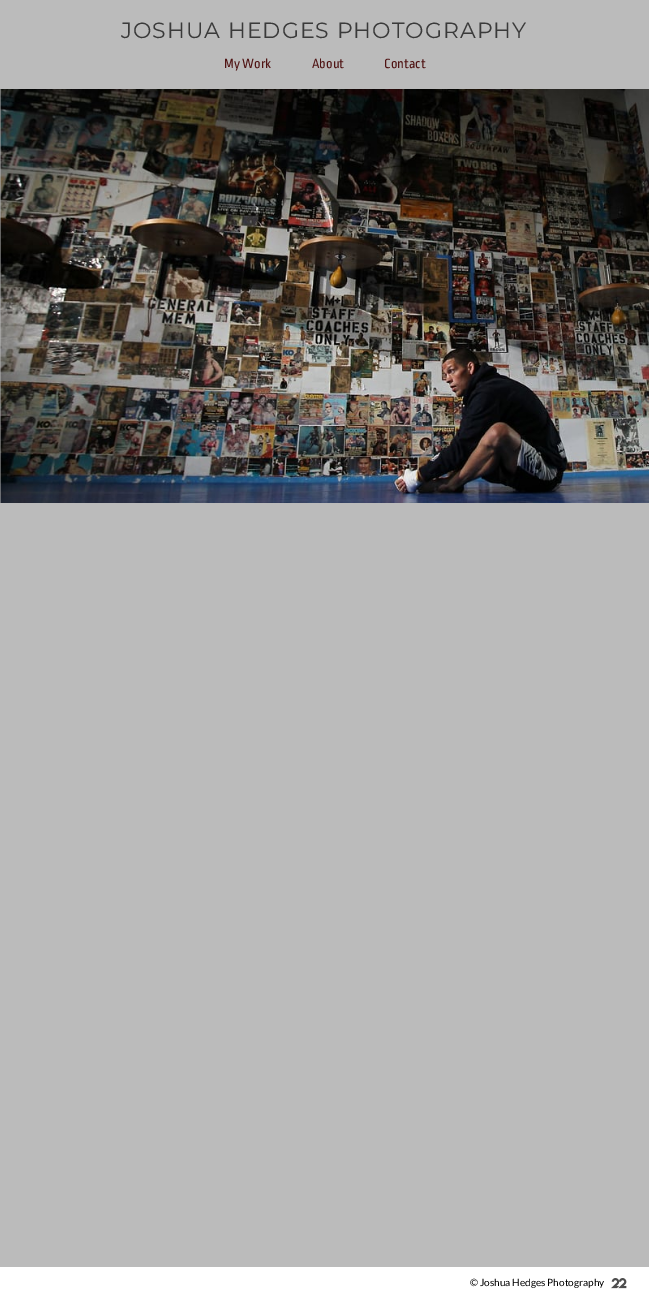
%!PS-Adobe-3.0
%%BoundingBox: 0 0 649 1298
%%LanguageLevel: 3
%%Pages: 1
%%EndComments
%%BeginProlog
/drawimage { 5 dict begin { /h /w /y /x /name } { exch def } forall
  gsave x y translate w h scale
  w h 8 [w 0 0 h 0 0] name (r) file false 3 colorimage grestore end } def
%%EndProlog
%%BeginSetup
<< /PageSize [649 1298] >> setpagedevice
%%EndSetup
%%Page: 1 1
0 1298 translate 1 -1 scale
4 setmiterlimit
0.733 setgray
0 0 649 1298 rectfill
(images/1.raw) 0 89 649 414 drawimage
1 setgray
0 1267 649 31 rectfill
(images/2.raw) 611 1278 16 11 drawimage
/Montserrat-Regular [22 0 0 -22 0 0] selectfont
0.227 setgray
121 38 moveto 1 0 (JOSHUA HEDGES PHOTOGRAPHY) ashow
/RopaSans-Regular [14 0 0 -14 0 0] selectfont
0.314 0.078 0.078 setrgbcolor
224 68 moveto (My Work) show
312 68 moveto (About) show
384 68 moveto (Contact) show
/Lato-Regular [10 0 0 -10 0 0] selectfont
0 setgray
470 1286 moveto (© Joshua Hedges Photography) show
showpage
%%EOF
